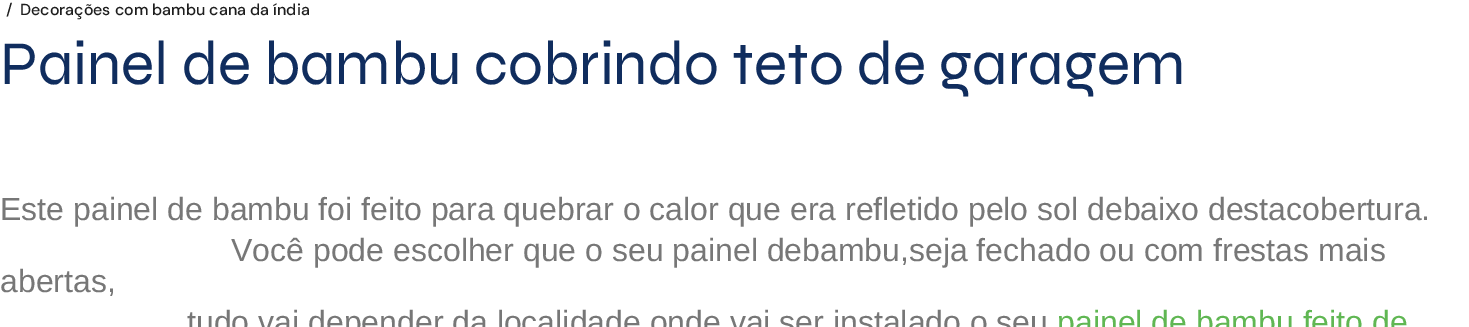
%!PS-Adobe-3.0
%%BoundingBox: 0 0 1469 327
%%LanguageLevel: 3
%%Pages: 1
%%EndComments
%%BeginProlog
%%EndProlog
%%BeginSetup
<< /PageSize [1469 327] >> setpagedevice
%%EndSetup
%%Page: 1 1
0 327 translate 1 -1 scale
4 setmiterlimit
1 setgray
0 0 1469 327 rectfill
/DMSans-Medium [16 0 0 -16 0 0] selectfont
0.118 setgray
6 15 moveto (/) show
/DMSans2-Medium [16 0 0 -16 0 0] selectfont
20 15 moveto (Decorações com bambu cana da índia) show
/Syne-Regular [62 0 0 -62 0 0] selectfont
0.063 0.176 0.369 setrgbcolor
0 84 moveto (Painel de bambu cobrindo teto de garagem) show
/LiberationSans-Regular [32 0 0 -32 0 0] selectfont
0.467 setgray
0 220 moveto (Este painel de bambu foi feito para quebrar o calor que era refletido pelo sol debaixo destacobertura.) show
231 261 moveto (Você pode escolher que o seu painel debambu,seja fechado ou com frestas mais) show
0 292 moveto (abertas,) show
187 333 moveto (tudo vai depender da localidade onde vai ser instalado o seu) show
0.376 0.718 0.325 setrgbcolor
1057 333 moveto (painel de bambu feito de) show
showpage
%%EOF
